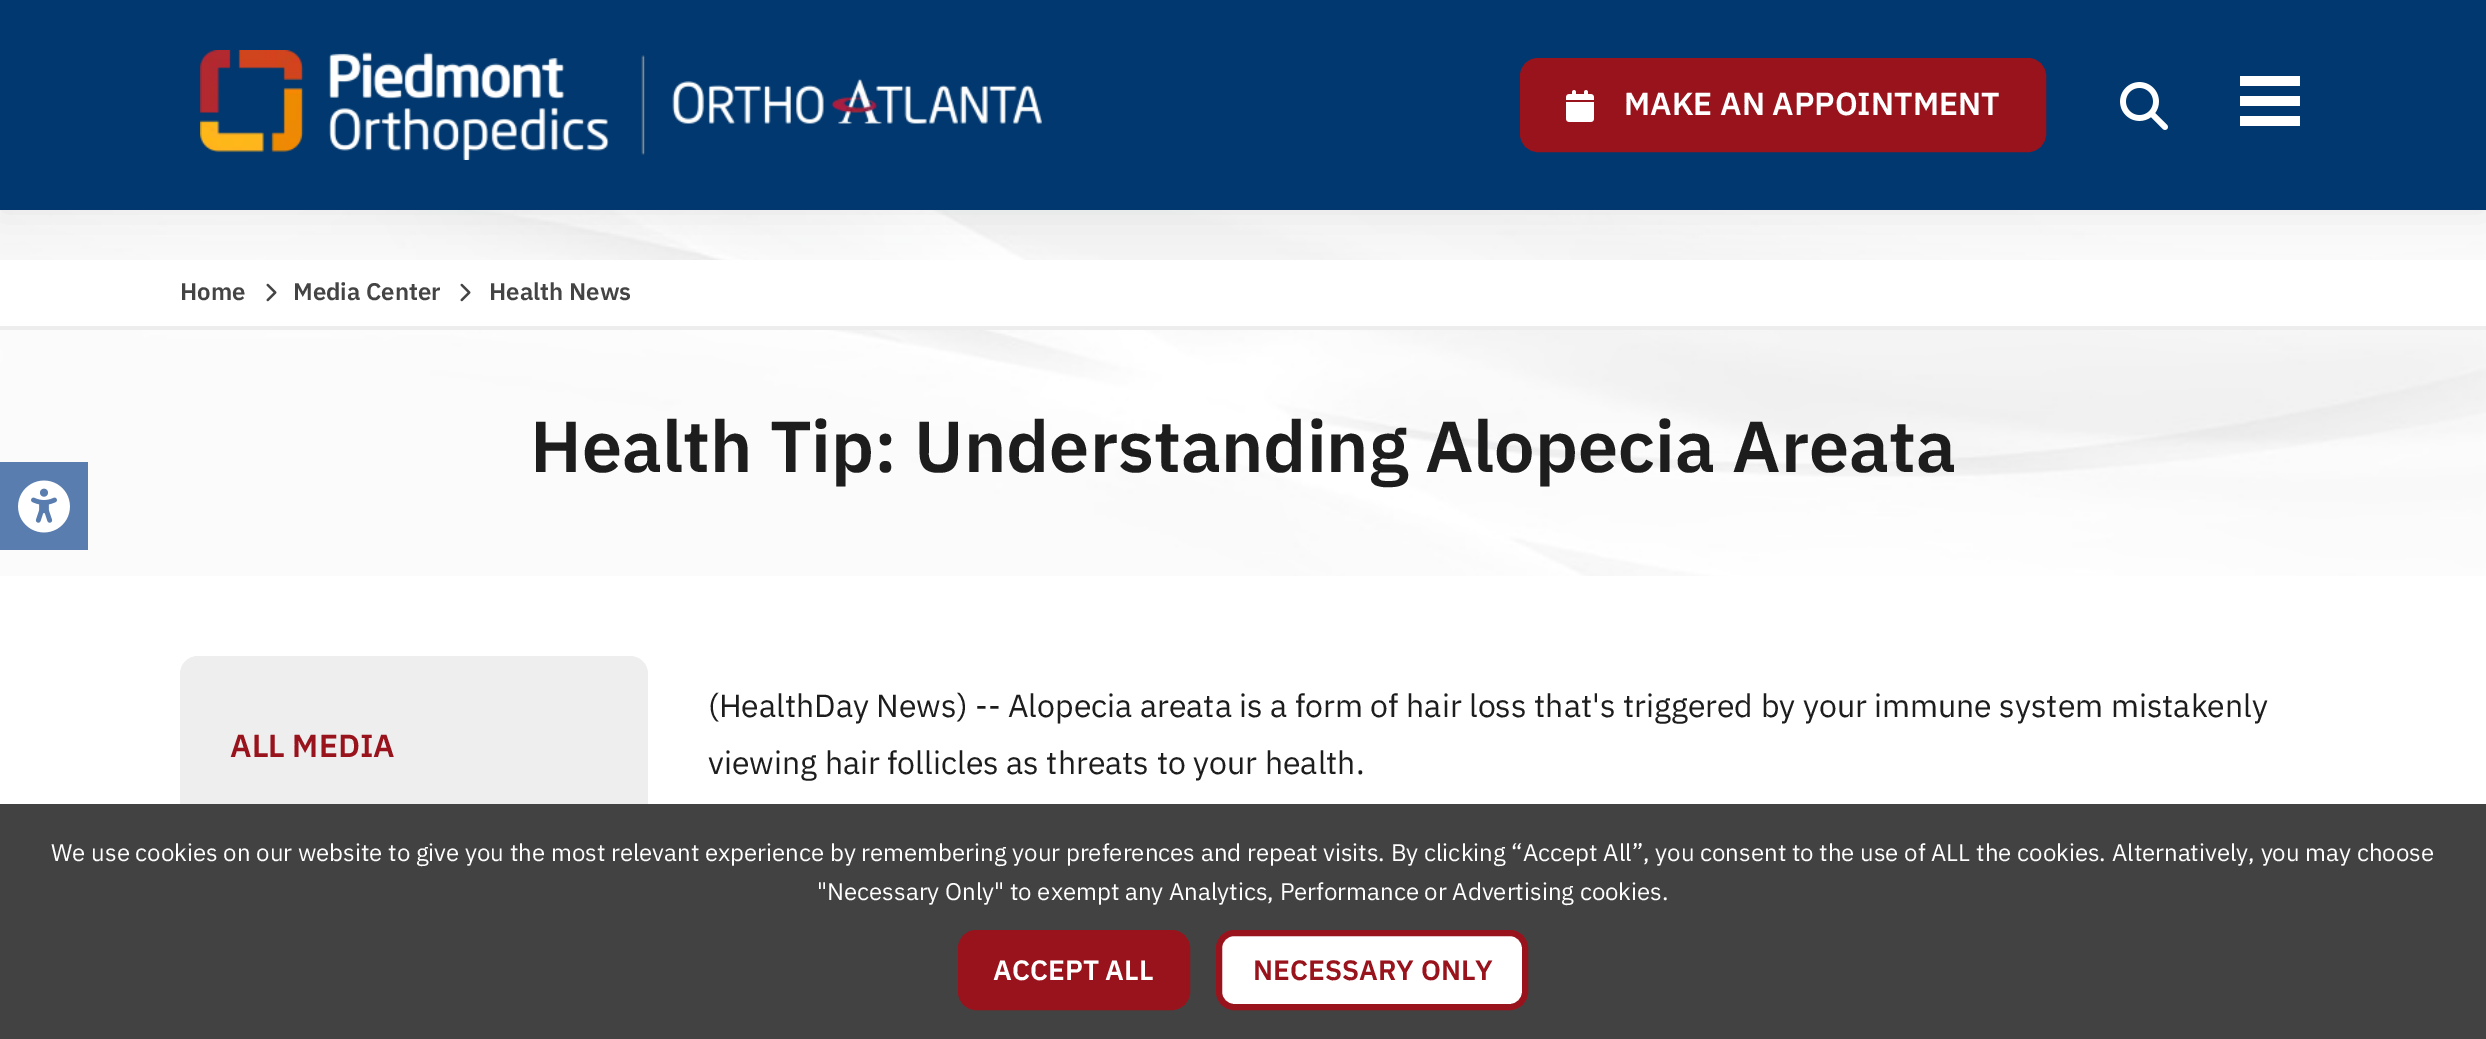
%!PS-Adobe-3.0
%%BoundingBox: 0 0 2486 1039
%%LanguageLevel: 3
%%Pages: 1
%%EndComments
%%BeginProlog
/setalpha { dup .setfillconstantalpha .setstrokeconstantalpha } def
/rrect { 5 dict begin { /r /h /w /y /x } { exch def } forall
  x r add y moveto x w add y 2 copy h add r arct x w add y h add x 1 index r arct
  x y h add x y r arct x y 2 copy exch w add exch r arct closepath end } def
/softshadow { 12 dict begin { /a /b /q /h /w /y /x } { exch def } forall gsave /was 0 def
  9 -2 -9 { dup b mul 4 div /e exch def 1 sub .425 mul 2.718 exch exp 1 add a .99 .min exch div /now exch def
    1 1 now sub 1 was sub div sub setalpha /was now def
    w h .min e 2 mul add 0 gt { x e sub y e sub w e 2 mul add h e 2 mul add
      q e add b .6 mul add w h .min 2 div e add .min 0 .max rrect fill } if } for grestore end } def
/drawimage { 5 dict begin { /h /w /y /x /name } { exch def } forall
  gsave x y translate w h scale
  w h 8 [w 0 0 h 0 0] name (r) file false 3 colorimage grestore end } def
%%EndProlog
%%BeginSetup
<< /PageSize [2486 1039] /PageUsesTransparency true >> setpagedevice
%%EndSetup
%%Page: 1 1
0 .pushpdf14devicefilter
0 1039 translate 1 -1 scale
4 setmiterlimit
1 setgray
0 0 2486 1039 rectfill
(images/5.raw) 0 210 2486 366 drawimage
0.349 0.49 0.686 setrgbcolor
0 462 88 88 rectfill
(images/1.raw) 18 480 52 53 drawimage
1 setgray
0 260 2486 66 rectfill
0.039 0.063 0.082 setrgbcolor
0 0 2486 210 0 20 0.08 softshadow
0 0.22 0.435 setrgbcolor
0 0 2486 210 rectfill
(images/2.raw) 200 50 842 110 drawimage
0.6 0.075 0.11 setrgbcolor
1523 61 520 88 15 rrect gsave fill grestore
6 setlinewidth
stroke
(images/3.raw) 1566 90 28 32 drawimage
(images/4.raw) 2120 82 48 48 drawimage
1 setgray
2240 76 60 10 rectfill
2240 96 60 10 rectfill
2240 116 60 10 rectfill
0.929 setgray
0 326 2486 4 rectfill
(images/6.raw) 266 283 11 19 drawimage
(images/6.raw) 460 283 11 19 drawimage
0.933 setgray
180 656 468 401 18 rrect fill
0.259 setgray
0 804 2486 235 rectfill
0.6 0.075 0.11 setrgbcolor
961 933 226 74 15 rrect gsave fill grestore
stroke
1 setgray
1219 933 306 74 15 rrect gsave fill grestore
0.6 0.075 0.11 setrgbcolor
stroke
/IBMPlexSans-SemiBold [32 0 0 -32 0 0] selectfont
1 setgray
1624 115 moveto (MAKE AN APPOINTMENT) show
/IBMPlexSans-SemiBold [24 0 0 -24 0 0] selectfont
0.267 setgray
180 300 moveto (Home) show
293 300 moveto (Media Center) show
489 300 moveto (Health News) show
/IBMPlexSans-SemiBold [72 0 0 -72 0 0] selectfont
0.114 setgray
530 472 moveto (Health Tip: Understanding Alopecia Areata) show
/IBMPlexSans-SemiBold [32 0 0 -32 0 0] selectfont
0.6 0.075 0.11 setrgbcolor
230 757 moveto (ALL MEDIA) show
/IBMPlexSans-Regular [32 0 0 -32 0 0] selectfont
0.114 setgray
708 717 moveto (\(HealthDay News\) -- Alopecia areata is a form of hair loss that's triggered by your immune system mistakenly) show
708 774 moveto (viewing hair follicles as threats to your health.) show
/IBMPlexSans-Regular [24 0 0 -24 0 0] selectfont
1 setgray
51 861 moveto (We use cookies on our website to give you the most relevant experience by remembering your preferences and repeat visits. By clicking “Accept All”, you consent to the use of ALL the cookies. Alternatively, you may choose) show
817 900 moveto ("Necessary Only" to exempt any Analytics, Performance or Advertising cookies.) show
/IBMPlexSans-SemiBold [28 0 0 -28 0 0] selectfont
993 980 moveto (ACCEPT ALL) show
0.6 0.075 0.11 setrgbcolor
1253 980 moveto (NECESSARY ONLY) show
.poppdf14devicefilter showpage
%%EOF
